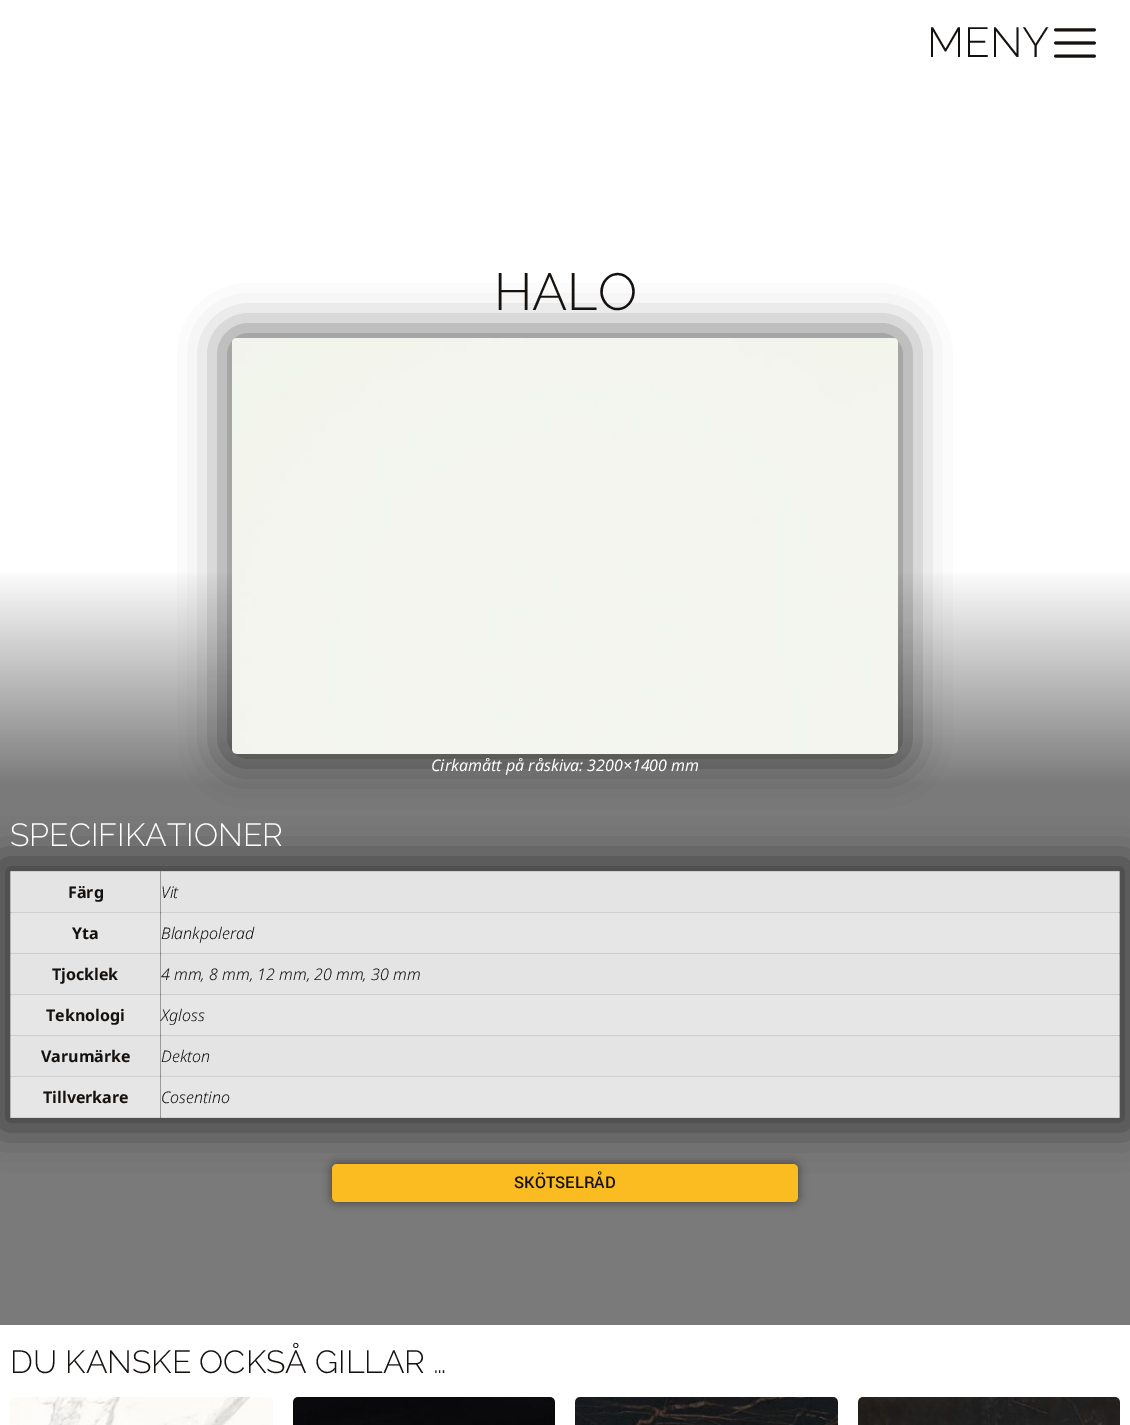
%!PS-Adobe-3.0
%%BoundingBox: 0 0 1130 1425
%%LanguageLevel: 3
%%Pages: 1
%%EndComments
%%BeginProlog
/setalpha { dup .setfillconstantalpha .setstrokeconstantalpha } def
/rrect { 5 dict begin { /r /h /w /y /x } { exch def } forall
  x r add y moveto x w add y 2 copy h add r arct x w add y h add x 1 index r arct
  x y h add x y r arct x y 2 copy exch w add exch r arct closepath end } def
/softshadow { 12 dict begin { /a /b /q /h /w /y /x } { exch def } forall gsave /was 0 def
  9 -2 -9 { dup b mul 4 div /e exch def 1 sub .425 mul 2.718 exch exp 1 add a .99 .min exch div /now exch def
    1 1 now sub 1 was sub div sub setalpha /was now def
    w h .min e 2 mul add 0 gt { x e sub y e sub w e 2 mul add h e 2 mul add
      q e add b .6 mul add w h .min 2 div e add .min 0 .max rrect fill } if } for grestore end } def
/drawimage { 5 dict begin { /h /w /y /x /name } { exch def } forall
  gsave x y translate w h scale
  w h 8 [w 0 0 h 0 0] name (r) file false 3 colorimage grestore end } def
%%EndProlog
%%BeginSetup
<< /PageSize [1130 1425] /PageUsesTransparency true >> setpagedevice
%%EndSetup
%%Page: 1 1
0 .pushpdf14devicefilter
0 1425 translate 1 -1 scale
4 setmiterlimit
1 setgray
0 0 1130 1425 rectfill
(images/1.raw) 1054 28 42 30 drawimage
gsave newpath 0 573 moveto 1130 573 lineto 1130 786 lineto 0 786 lineto closepath clip newpath
<< /ShadingType 2 /ColorSpace /DeviceRGB /Coords [565 786 565 199] /Extend [true true] /Function << /FunctionType 3 /Domain [0 1] /Functions [<< /FunctionType 2 /Domain [0 1] /C0 [0.478 0.478 0.478] /C1 [1 1 1] /N 1 >> << /FunctionType 2 /Domain [0 1] /C0 [1 1 1] /C1 [1 1 1] /N 1 >>] /Bounds [0.37] /Encode [0 1 0 1] >> >> shfill grestore
0.478 setgray
0 786 1130 539 rectfill
0 setgray
222 328 686 436 15 20 0.5 softshadow
(images/2.raw) 232 338 666 416 drawimage
0 861 1130 267 0 20 0.5 softshadow
0.714 setgray
10 871 1 247 rectfill
0.573 setgray
10 912 1 1 rectfill
10 953 1 1 rectfill
10 994 1 1 rectfill
10 1035 1 1 rectfill
10 1076 1 1 rectfill
0.831 setgray
10 1117 1110 1 rectfill
0.667 setgray
10 1117 1 1 rectfill
0.525 setgray
160 1117 1 1 rectfill
0.643 setgray
1119 1117 1 1 rectfill
0.667 setgray
10 871 1 1 rectfill
0.894 setgray
11 872 149 40 rectfill
0.6 setgray
160 871 1 41 rectfill
0.804 setgray
11 871 150 1 rectfill
0.58 setgray
160 871 1 1 rectfill
0.894 setgray
161 872 958 40 rectfill
0.698 setgray
1119 871 1 41 rectfill
0.804 setgray
161 871 959 1 rectfill
0.655 setgray
1119 871 1 1 rectfill
0.902 setgray
11 913 149 40 rectfill
0.812 setgray
11 912 1109 1 rectfill
0.604 setgray
160 912 1 41 rectfill
0.463 setgray
160 912 1 1 rectfill
0.902 setgray
161 913 958 40 rectfill
0.702 setgray
1119 912 1 41 rectfill
0.545 setgray
1119 912 1 1 rectfill
0.894 setgray
11 954 149 40 rectfill
0.804 setgray
11 953 1109 1 rectfill
0.6 setgray
160 953 1 41 rectfill
0.463 setgray
160 953 1 1 rectfill
0.894 setgray
161 954 958 40 rectfill
0.698 setgray
1119 953 1 41 rectfill
0.541 setgray
1119 953 1 1 rectfill
0.902 setgray
11 995 149 40 rectfill
0.812 setgray
11 994 1109 1 rectfill
0.604 setgray
160 994 1 41 rectfill
0.463 setgray
160 994 1 1 rectfill
0.902 setgray
161 995 958 40 rectfill
0.702 setgray
1119 994 1 41 rectfill
0.545 setgray
1119 994 1 1 rectfill
0.894 setgray
11 1036 149 40 rectfill
0.804 setgray
11 1035 1109 1 rectfill
0.6 setgray
160 1035 1 41 rectfill
0.463 setgray
160 1035 1 1 rectfill
0.894 setgray
161 1036 958 40 rectfill
0.698 setgray
1119 1035 1 41 rectfill
0.541 setgray
1119 1035 1 1 rectfill
0.902 setgray
11 1077 149 40 rectfill
0.812 setgray
11 1076 1109 1 rectfill
0.604 setgray
160 1076 1 41 rectfill
0.463 setgray
160 1076 1 1 rectfill
0.902 setgray
161 1077 958 40 rectfill
0.702 setgray
1119 1076 1 41 rectfill
0.545 setgray
1119 1076 1 1 rectfill
0 setgray
332 1164 466 38 5 5 0.5 softshadow
0.98 0.737 0.129 setrgbcolor
332 1164 466 38 5 rrect fill
(images/3.raw) 10 1397 263 28 drawimage
(images/4.raw) 293 1397 262 28 drawimage
(images/5.raw) 575 1397 263 28 drawimage
(images/6.raw) 858 1397 262 28 drawimage
/Raleway-Light [42 0 0 -42 0 0] selectfont
0.078 0.067 0.059 setrgbcolor
927 57 moveto (MENY) show
/Raleway-Light [52 0 0 -52 0 0] selectfont
494 310 moveto (HALO) show
/NotoSans-Italic [16 0 0 -16 0 0] selectfont
1 setgray
431 771 moveto (Cirkamått på råskiva: 3200×1400 mm) show
/Raleway-Light [32 0 0 -32 0 0] selectfont
10 846 moveto (SPECIFIKATIONER) show
/NotoSans-Bold [16 0 0 -16 0 0] selectfont
0.078 0.067 0.059 setrgbcolor
68 898 moveto (Färg) show
/NotoSans-LightItalic [16 0 0 -16 0 0] selectfont
161 898 moveto (Vit) show
/NotoSans-Bold [16 0 0 -16 0 0] selectfont
72 939 moveto (Yta) show
/NotoSans-LightItalic [16 0 0 -16 0 0] selectfont
161 939 moveto (Blankpolerad) show
/NotoSans-Bold [16 0 0 -16 0 0] selectfont
52 980 moveto (Tjocklek) show
/NotoSans-LightItalic [16 0 0 -16 0 0] selectfont
161 980 moveto (4 mm, 8 mm, 12 mm, 20 mm, 30 mm) show
/NotoSans-Bold [16 0 0 -16 0 0] selectfont
46 1021 moveto (Teknologi) show
/NotoSans-LightItalic [16 0 0 -16 0 0] selectfont
161 1021 moveto (Xgloss) show
/NotoSans-Bold [16 0 0 -16 0 0] selectfont
41 1062 moveto (Varumärke) show
/NotoSans-LightItalic [16 0 0 -16 0 0] selectfont
161 1062 moveto (Dekton) show
/NotoSans-Bold [16 0 0 -16 0 0] selectfont
43 1103 moveto (Tillverkare) show
/NotoSans-LightItalic [16 0 0 -16 0 0] selectfont
161 1103 moveto (Cosentino) show
/Yantramanav-Medium [18 0 0 -18 0 0] selectfont
514 1188 moveto (SKÖTSELRÅD) show
/Raleway-Light [32 0 0 -32 0 0] selectfont
10 1373 moveto (DU KANSKE OCKSÅ GILLAR …) show
.poppdf14devicefilter showpage
%%EOF
